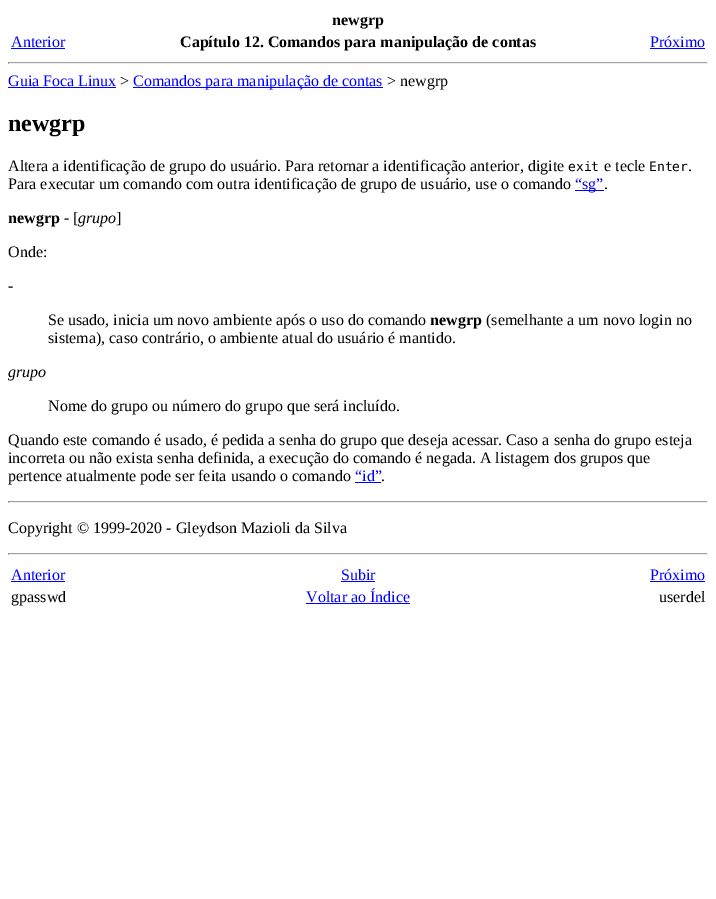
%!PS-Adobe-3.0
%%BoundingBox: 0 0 716 899
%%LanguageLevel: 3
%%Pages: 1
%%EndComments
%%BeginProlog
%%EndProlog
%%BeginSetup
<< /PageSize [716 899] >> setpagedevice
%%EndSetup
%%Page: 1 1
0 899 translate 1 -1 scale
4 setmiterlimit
1 setgray
0 0 716 899 rectfill
0 0 1 setrgbcolor
11 48 54 1 rectfill
650 48 55 1 rectfill
0.624 setgray
8 62 700 1 rectfill
0.933 setgray
707 62 1 2 rectfill
8 63 700 1 rectfill
0.624 setgray
8 62 1 2 rectfill
0 0 1 setrgbcolor
8 87 108 1 rectfill
133 87 250 1 rectfill
575 190 29 1 rectfill
355 482 26 1 rectfill
0.624 setgray
8 501 700 1 rectfill
0.933 setgray
707 501 1 2 rectfill
8 502 700 1 rectfill
0.624 setgray
8 501 1 2 rectfill
8 553 700 1 rectfill
0.933 setgray
707 553 1 2 rectfill
8 554 700 1 rectfill
0.624 setgray
8 553 1 2 rectfill
0 0 1 setrgbcolor
11 581 54 1 rectfill
341 581 34 1 rectfill
650 581 55 1 rectfill
306 603 104 1 rectfill
/LiberationSerif-Bold [16 0 0 -16 0 0] selectfont
0 setgray
332 25 moveto (newgrp) show
/LiberationSerif-Regular [16 0 0 -16 0 0] selectfont
0 0 1 setrgbcolor
11 47 moveto (Anterior) show
/LiberationSerif-Bold [16 0 0 -16 0 0] selectfont
0 setgray
180 47 moveto (Capítulo 12. Comandos para manipulação de contas) show
/LiberationSerif-Regular [16 0 0 -16 0 0] selectfont
0 0 1 setrgbcolor
650 47 moveto (Próximo) show
8 86 moveto (Guia Foca Linux) show
0 setgray
120 86 moveto (>) show
0 0 1 setrgbcolor
133 86 moveto (Comandos para manipulação de contas) show
0 setgray
387 86 moveto (> newgrp) show
/LiberationSerif-Bold [24 0 0 -24 0 0] selectfont
8 131 moveto (newgrp) show
/LiberationSerif-Regular [16 0 0 -16 0 0] selectfont
8 171 moveto (Altera a identificação de grupo do usuário. Para retornar a identificação anterior, digite) show
/DejaVuSansMono-Regular [13 0 0 -13 0 0] selectfont
568 171 moveto (exit) show
/LiberationSerif-Regular [16 0 0 -16 0 0] selectfont
604 171 moveto (e tecle) show
/DejaVuSansMono-Regular [13 0 0 -13 0 0] selectfont
649 171 moveto (Enter) show
/LiberationSerif-Regular [16 0 0 -16 0 0] selectfont
688 171 moveto (.) show
8 189 moveto (Para executar um comando com outra identificação de grupo de usuário, use o comando) show
0 0 1 setrgbcolor
575 189 moveto (“sg”) show
0 setgray
604 189 moveto (.) show
/LiberationSerif-Bold [16 0 0 -16 0 0] selectfont
8 223 moveto (newgrp) show
/LiberationSerif-Italic [16 0 0 -16 0 0] selectfont
64 223 moveto (-) show
/LiberationSerif-Regular [16 0 0 -16 0 0] selectfont
73 223 moveto ([) show
/LiberationSerif-Italic [16 0 0 -16 0 0] selectfont
78 223 moveto (grupo) show
/LiberationSerif-Regular [16 0 0 -16 0 0] selectfont
116 223 moveto (]) show
8 257 moveto (Onde:) show
/LiberationSerif-Italic [16 0 0 -16 0 0] selectfont
8 291 moveto (-) show
/LiberationSerif-Regular [16 0 0 -16 0 0] selectfont
48 325 moveto (Se usado, inicia um novo ambiente após o uso do comando) show
/LiberationSerif-Bold [16 0 0 -16 0 0] selectfont
430 325 moveto (newgrp) show
/LiberationSerif-Regular [16 0 0 -16 0 0] selectfont
486 325 moveto (\(semelhante a um novo login no) show
48 343 moveto (sistema\), caso contrário, o ambiente atual do usuário é mantido.) show
/LiberationSerif-Italic [16 0 0 -16 0 0] selectfont
8 377 moveto (grupo) show
/LiberationSerif-Regular [16 0 0 -16 0 0] selectfont
48 411 moveto (Nome do grupo ou número do grupo que será incluído.) show
8 445 moveto (Quando este comando é usado, é pedida a senha do grupo que deseja acessar. Caso a senha do grupo esteja) show
8 463 moveto (incorreta ou não exista senha definida, a execução do comando é negada. A listagem dos grupos que) show
8 481 moveto (pertence atualmente pode ser feita usando o comando) show
0 0 1 setrgbcolor
355 481 moveto (“id”) show
0 setgray
381 481 moveto (.) show
8 533 moveto (Copyright © 1999-2020 - Gleydson Mazioli da Silva) show
0 0 1 setrgbcolor
11 580 moveto (Anterior) show
341 580 moveto (Subir) show
650 580 moveto (Próximo) show
0 setgray
11 602 moveto (gpasswd) show
0 0 1 setrgbcolor
306 602 moveto (Voltar ao Índice) show
0 setgray
659 602 moveto (userdel) show
showpage
%%EOF
